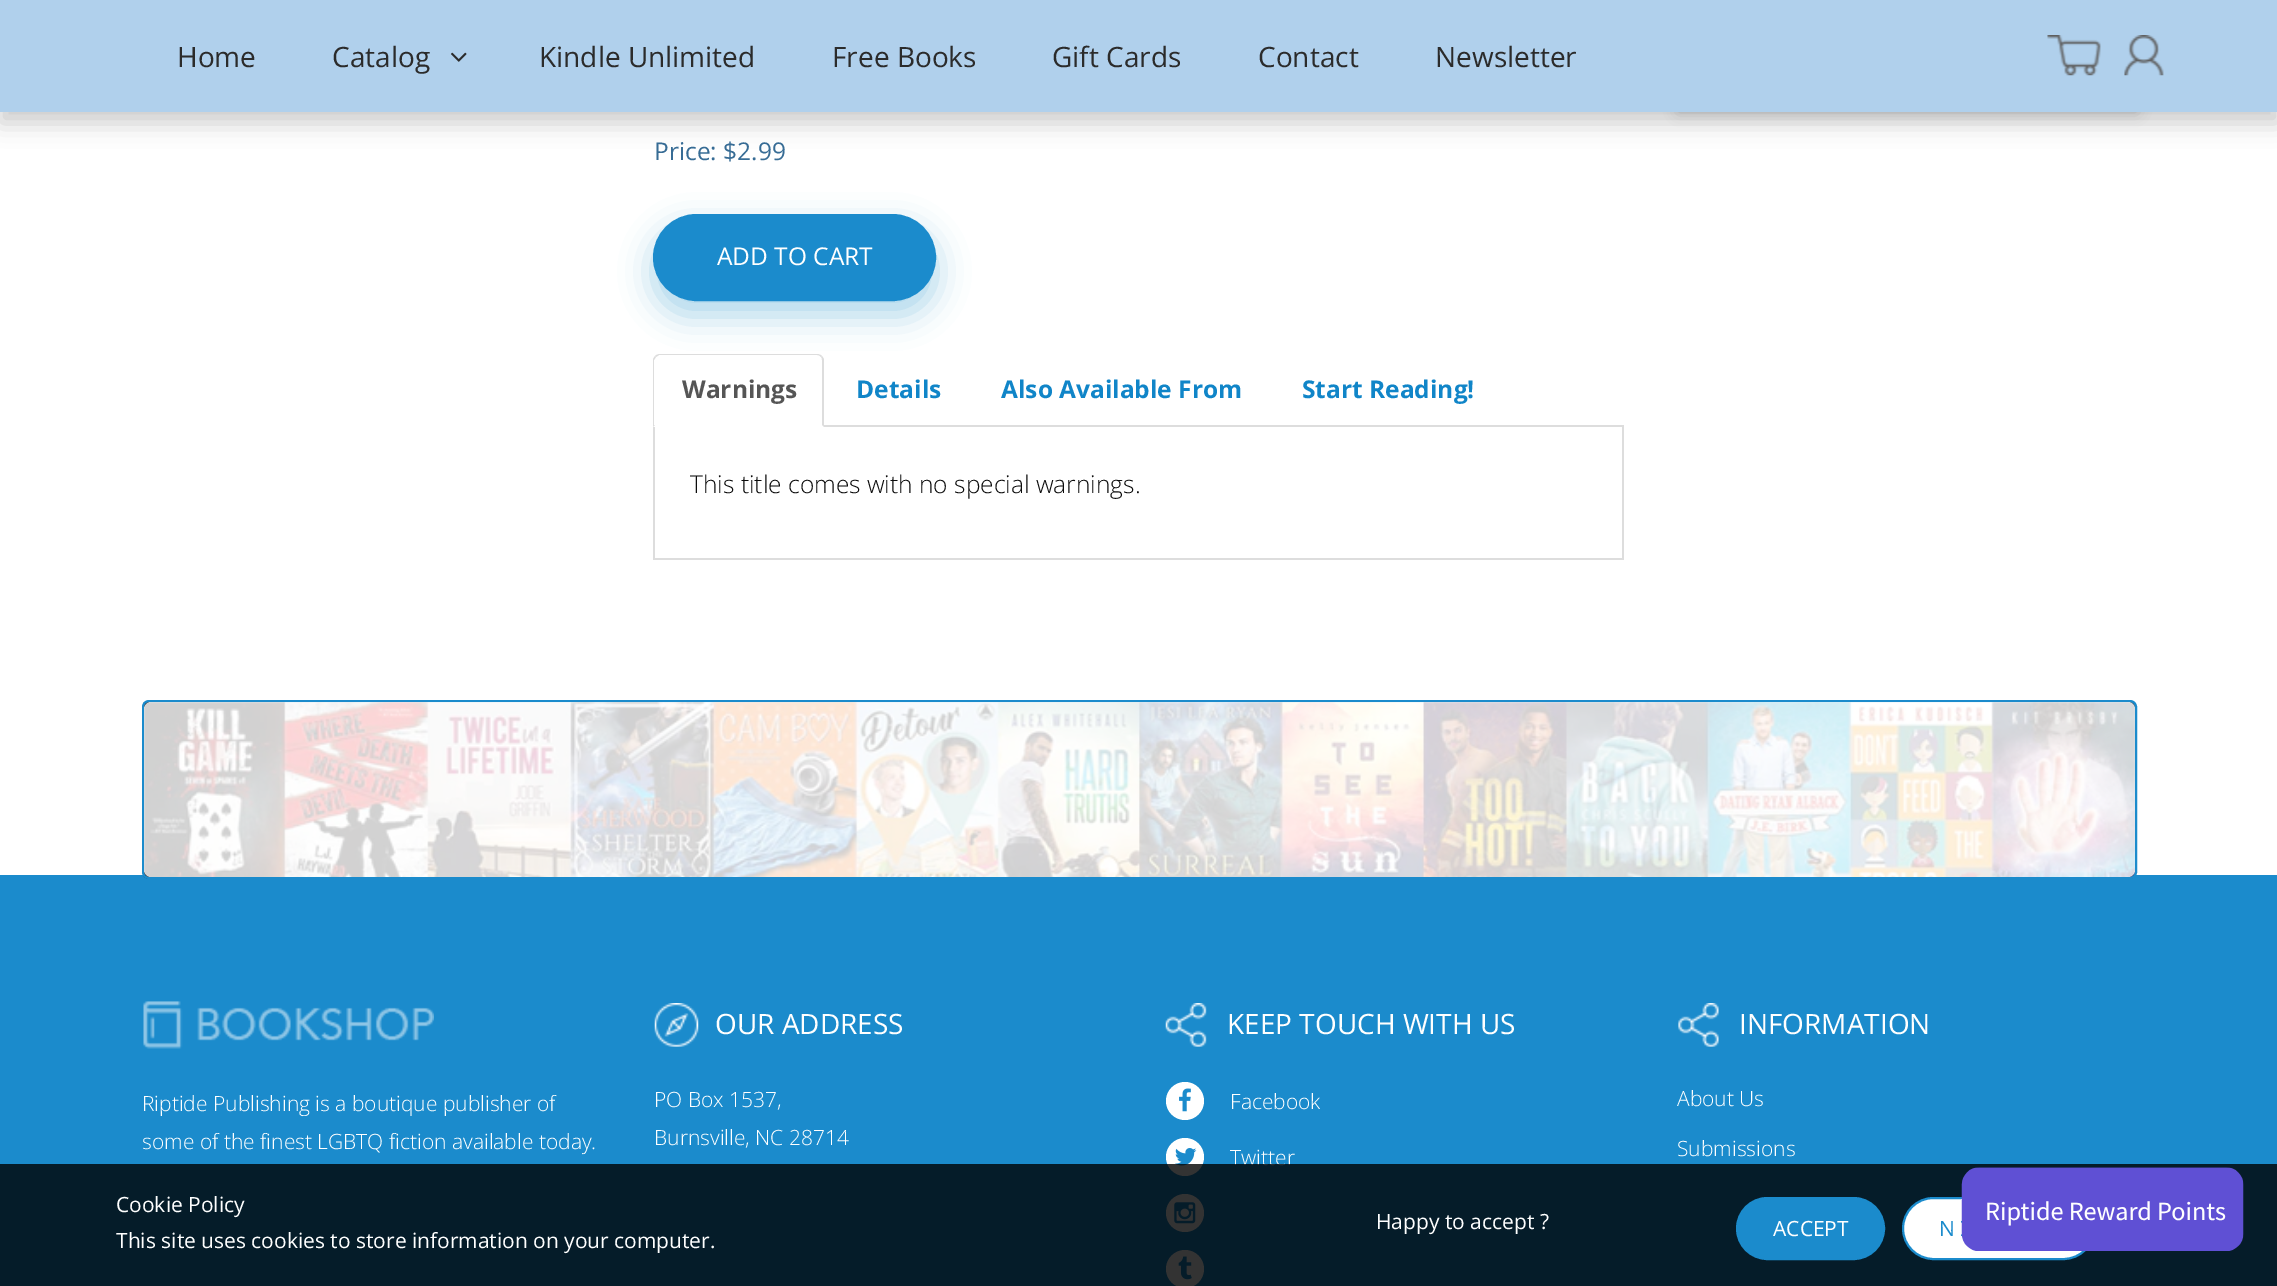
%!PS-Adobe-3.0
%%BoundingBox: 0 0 2277 1286
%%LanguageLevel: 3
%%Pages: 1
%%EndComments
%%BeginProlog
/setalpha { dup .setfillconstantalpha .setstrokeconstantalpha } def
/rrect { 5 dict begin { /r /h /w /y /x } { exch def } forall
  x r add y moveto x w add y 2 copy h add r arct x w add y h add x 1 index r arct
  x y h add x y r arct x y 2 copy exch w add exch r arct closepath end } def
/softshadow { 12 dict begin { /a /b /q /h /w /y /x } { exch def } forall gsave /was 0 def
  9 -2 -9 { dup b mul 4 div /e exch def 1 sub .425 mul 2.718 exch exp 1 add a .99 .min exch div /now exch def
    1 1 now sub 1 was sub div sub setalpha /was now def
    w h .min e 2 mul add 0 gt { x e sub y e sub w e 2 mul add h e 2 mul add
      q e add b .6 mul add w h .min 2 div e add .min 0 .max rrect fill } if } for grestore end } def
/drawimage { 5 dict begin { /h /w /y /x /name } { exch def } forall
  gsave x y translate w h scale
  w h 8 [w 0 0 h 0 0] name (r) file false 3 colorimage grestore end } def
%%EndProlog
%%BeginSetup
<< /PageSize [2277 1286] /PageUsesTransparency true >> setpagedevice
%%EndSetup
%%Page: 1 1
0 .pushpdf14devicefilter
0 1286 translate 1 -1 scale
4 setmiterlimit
1 setgray
0 0 2277 1286 rectfill
0 setgray
0 11 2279 112 0 11.5 0.2 softshadow
1678 -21 459 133 0 7 0.2 softshadow
0.69 0.816 0.925 setrgbcolor
0 0 2277 112 rectfill
(images/1.raw) 451 52 16 10 drawimage
(images/2.raw) 2047 35 54 41 drawimage
(images/3.raw) 2124 35 40 41 drawimage
0.106 0.545 0.8 setrgbcolor
653 228 283 87 43.5 16 0.36 softshadow
654 215 281 85 42.5 rrect gsave fill grestore
2 setlinewidth
stroke
0.867 setgray
824 425 800 2 rectfill
newpath 660 354 moveto 658 354 656 355 655 356 curveto 656 357 lineto 659 355 lineto 817 355 lineto 819 355 820 356 821 357 curveto 822 356 lineto 821 355 819 354 817 354 curveto closepath fill
newpath 824 427 moveto 824 359 lineto 822 356 lineto 821 357 lineto 822 358 822 359 822 360 curveto 822 425 lineto closepath fill
newpath 655 356 moveto 653 359 lineto 653 427 lineto 655 425 lineto 654 425 lineto 654 360 lineto 656 357 lineto closepath fill
1622 427 2 133 rectfill
653 558 971 2 rectfill
653 427 2 133 rectfill
0.106 0.545 0.8 setrgbcolor
0 875 2277 411 rectfill
(images/4.raw) 143 702 1992 177 drawimage
143 701 1993 177 6 rrect stroke
0.82 setalpha
1 setgray
144 702 1991 175 7 rrect fill
1 setalpha
(images/5.raw) 143 1001 291 48 drawimage
(images/6.raw) 654 1003 45 44 drawimage
(images/7.raw) 1165 1003 42 44 drawimage
newpath 1185 1101 19 0 360 arc closepath fill
(images/8.raw) 1179 1088 12 24 drawimage
newpath 1185 1157 19 0 360 arc closepath fill
(images/9.raw) 1175 1148 22 18 drawimage
newpath 1185 1213 19 0 360 arc closepath fill
(images/10.raw) 1174 1202 22 22 drawimage
newpath 1185 1269 19 0 360 arc closepath fill
(images/11.raw) 1178 1256 14 24 drawimage
(images/12.raw) 1678 1003 41 44 drawimage
/OpenSans-Regular [28 0 0 -28 0 0] selectfont
0.169 setgray
177 67 moveto (Home) show
332 67 moveto (Catalog) show
539 67 moveto (Kindle Unlimited) show
832 67 moveto (Free Books) show
1052 67 moveto (Gift Cards) show
1258 67 moveto (Contact) show
1435 67 moveto (Newsletter) show
/OpenSans-Regular [24.5 0 0 -24.5 0 0] selectfont
0.216 0.424 0.584 setrgbcolor
654 160 moveto (Price: $2.99) show
1 setgray
717 265 moveto (ADD TO CART) show
/OpenSans-Bold [24.5 0 0 -24.5 0 0] selectfont
0.333 setgray
682 398 moveto (Warnings) show
0.063 0.522 0.784 setrgbcolor
856 398 moveto (Details) show
1001 398 moveto (Also Available From) show
1302 398 moveto (Start Reading!) show
/OpenSans-Light [24.5 0 0 -24.5 0 0] selectfont
0.047 setgray
690 493 moveto (This title comes with no special warnings.) show
/OpenSans-Light [21 0 0 -21 0 0] selectfont
1 setgray
142 1111 moveto (Riptide Publishing is a boutique publisher of) show
142 1149 moveto (some of the finest LGBTQ fiction available today.) show
/OpenSans-Regular [28 0 0 -28 0 0] selectfont
715 1034 moveto (OUR ADDRESS) show
/OpenSans-Light [21 0 0 -21 0 0] selectfont
654 1107 moveto (PO Box 1537,) show
654 1145 moveto (Burnsville, NC 28714) show
/OpenSans-Regular [28 0 0 -28 0 0] selectfont
1227 1034 moveto (KEEP TOUCH WITH US) show
/OpenSans-Light [21 0 0 -21 0 0] selectfont
1230 1109 moveto (Facebook) show
1230 1165 moveto (Twitter) show
/OpenSans-Regular [28 0 0 -28 0 0] selectfont
1739 1034 moveto (INFORMATION) show
/OpenSans-Light [21 0 0 -21 0 0] selectfont
1677 1106 moveto (About Us) show
1677 1156 moveto (Submissions) show
0.8 setalpha
0 setgray
0 1164 2277 122 rectfill
/OpenSans-Regular [21 0 0 -21 0 0] selectfont
1 setalpha
1 setgray
116 1212 moveto (Cookie Policy) show
1376 1229 moveto (Happy to accept ?) show
0.106 0.545 0.8 setrgbcolor
1737 1198 147 61 30.5 rrect gsave fill grestore
stroke
1 setgray
1773 1236 moveto (ACCEPT) show
1903 1198 191 61 30.5 rrect gsave fill grestore
0.106 0.545 0.8 setrgbcolor
stroke
1939 1236 moveto (N) show
1 setgray
116 1248 moveto (This site uses cookies to store information on your computer.) show
(images/13.raw) 1961 1167 283 84 drawimage
.poppdf14devicefilter showpage
%%EOF
